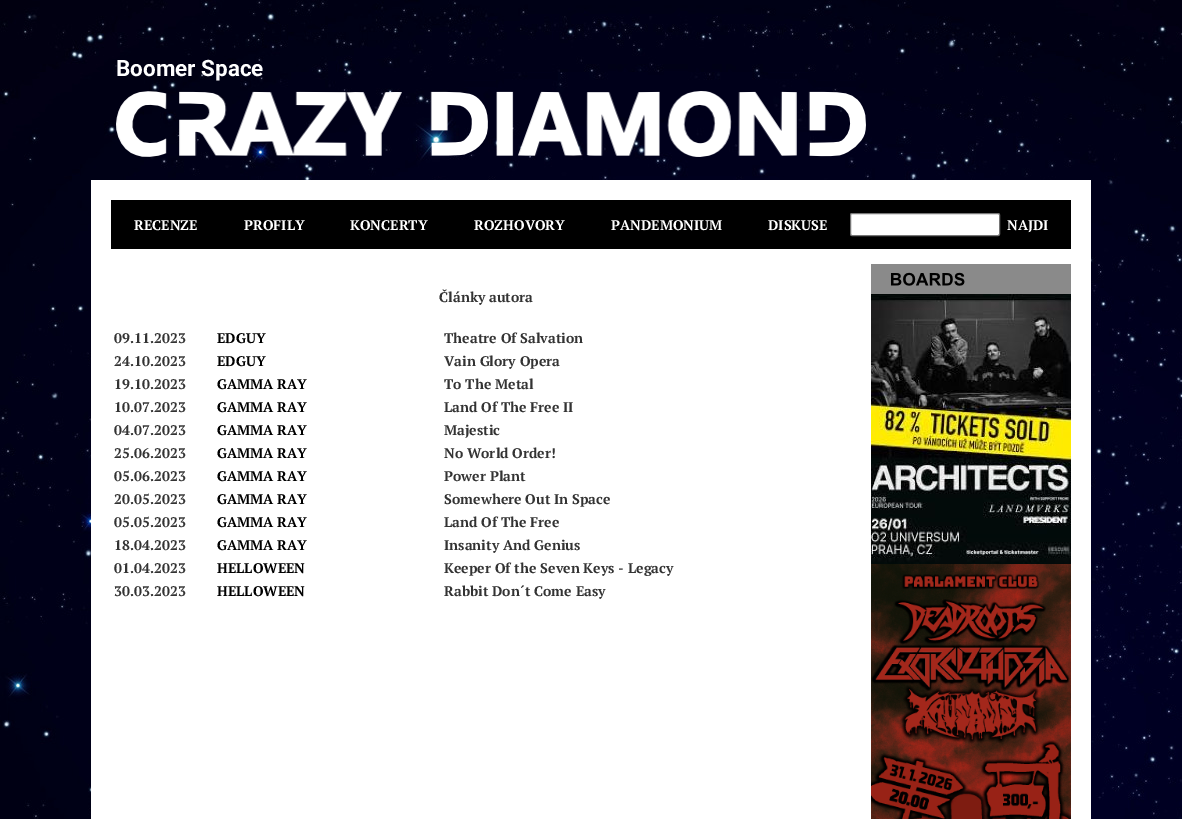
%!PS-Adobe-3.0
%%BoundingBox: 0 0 1182 819
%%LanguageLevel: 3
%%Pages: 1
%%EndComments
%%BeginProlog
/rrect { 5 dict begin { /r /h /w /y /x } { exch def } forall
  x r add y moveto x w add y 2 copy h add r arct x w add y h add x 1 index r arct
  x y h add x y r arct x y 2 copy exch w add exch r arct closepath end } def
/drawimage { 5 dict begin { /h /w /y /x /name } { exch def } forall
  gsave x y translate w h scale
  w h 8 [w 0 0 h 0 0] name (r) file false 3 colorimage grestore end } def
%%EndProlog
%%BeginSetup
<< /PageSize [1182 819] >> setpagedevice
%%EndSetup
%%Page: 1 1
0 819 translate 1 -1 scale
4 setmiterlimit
1 setgray
0 0 1182 819 rectfill
(images/1.raw) 0 0 1182 819 drawimage
(images/2.raw) 116 91 750 66 drawimage
91 180 1000 639 rectfill
0 setgray
111 200 960 49 rectfill
1 setgray
850.5 213.5 149 22 1.5 rrect gsave fill grestore
0.463 setgray
stroke
(images/3.raw) 871 264 200 30 drawimage
(images/4.raw) 871 294 200 270 drawimage
(images/5.raw) 871 564 200 255 drawimage
/Roboto-Bold [22.5 0 0 -22.5 0 0] selectfont
1 setgray
116 76 moveto (Boomer Space) show
/PTSerif-Bold [14 0 0 -14 0 0] selectfont
134 230 moveto (RECENZE) show
244 230 moveto (PROFILY) show
350 230 moveto (KONCERTY) show
474 230 moveto (ROZHOVORY) show
611 230 moveto (PANDEMONIUM) show
768 230 moveto (DISKUSE) show
1007 230 moveto (NAJDI) show
0.2 setgray
439 302 moveto (Články autora) show
114 343 moveto (09.11.2023) show
0 setgray
217 343 moveto (EDGUY) show
0.2 setgray
444 343 moveto (Theatre Of Salvation) show
114 366 moveto (24.10.2023) show
0 setgray
217 366 moveto (EDGUY) show
0.2 setgray
444 366 moveto (Vain Glory Opera) show
114 389 moveto (19.10.2023) show
0 setgray
217 389 moveto (GAMMA RAY) show
0.2 setgray
444 389 moveto (To The Metal) show
114 412 moveto (10.07.2023) show
0 setgray
217 412 moveto (GAMMA RAY) show
0.2 setgray
444 412 moveto (Land Of The Free II) show
114 435 moveto (04.07.2023) show
0 setgray
217 435 moveto (GAMMA RAY) show
0.2 setgray
444 435 moveto (Majestic) show
114 458 moveto (25.06.2023) show
0 setgray
217 458 moveto (GAMMA RAY) show
0.2 setgray
444 458 moveto (No World Order!) show
114 481 moveto (05.06.2023) show
0 setgray
217 481 moveto (GAMMA RAY) show
0.2 setgray
444 481 moveto (Power Plant) show
114 504 moveto (20.05.2023) show
0 setgray
217 504 moveto (GAMMA RAY) show
0.2 setgray
444 504 moveto (Somewhere Out In Space) show
114 527 moveto (05.05.2023) show
0 setgray
217 527 moveto (GAMMA RAY) show
0.2 setgray
444 527 moveto (Land Of The Free) show
114 550 moveto (18.04.2023) show
0 setgray
217 550 moveto (GAMMA RAY) show
0.2 setgray
444 550 moveto (Insanity And Genius) show
114 573 moveto (01.04.2023) show
0 setgray
217 573 moveto (HELLOWEEN) show
0.2 setgray
444 573 moveto (Keeper Of the Seven Keys - Legacy) show
114 596 moveto (30.03.2023) show
0 setgray
217 596 moveto (HELLOWEEN) show
0.2 setgray
444 596 moveto (Rabbit Don´t Come Easy) show
showpage
%%EOF
